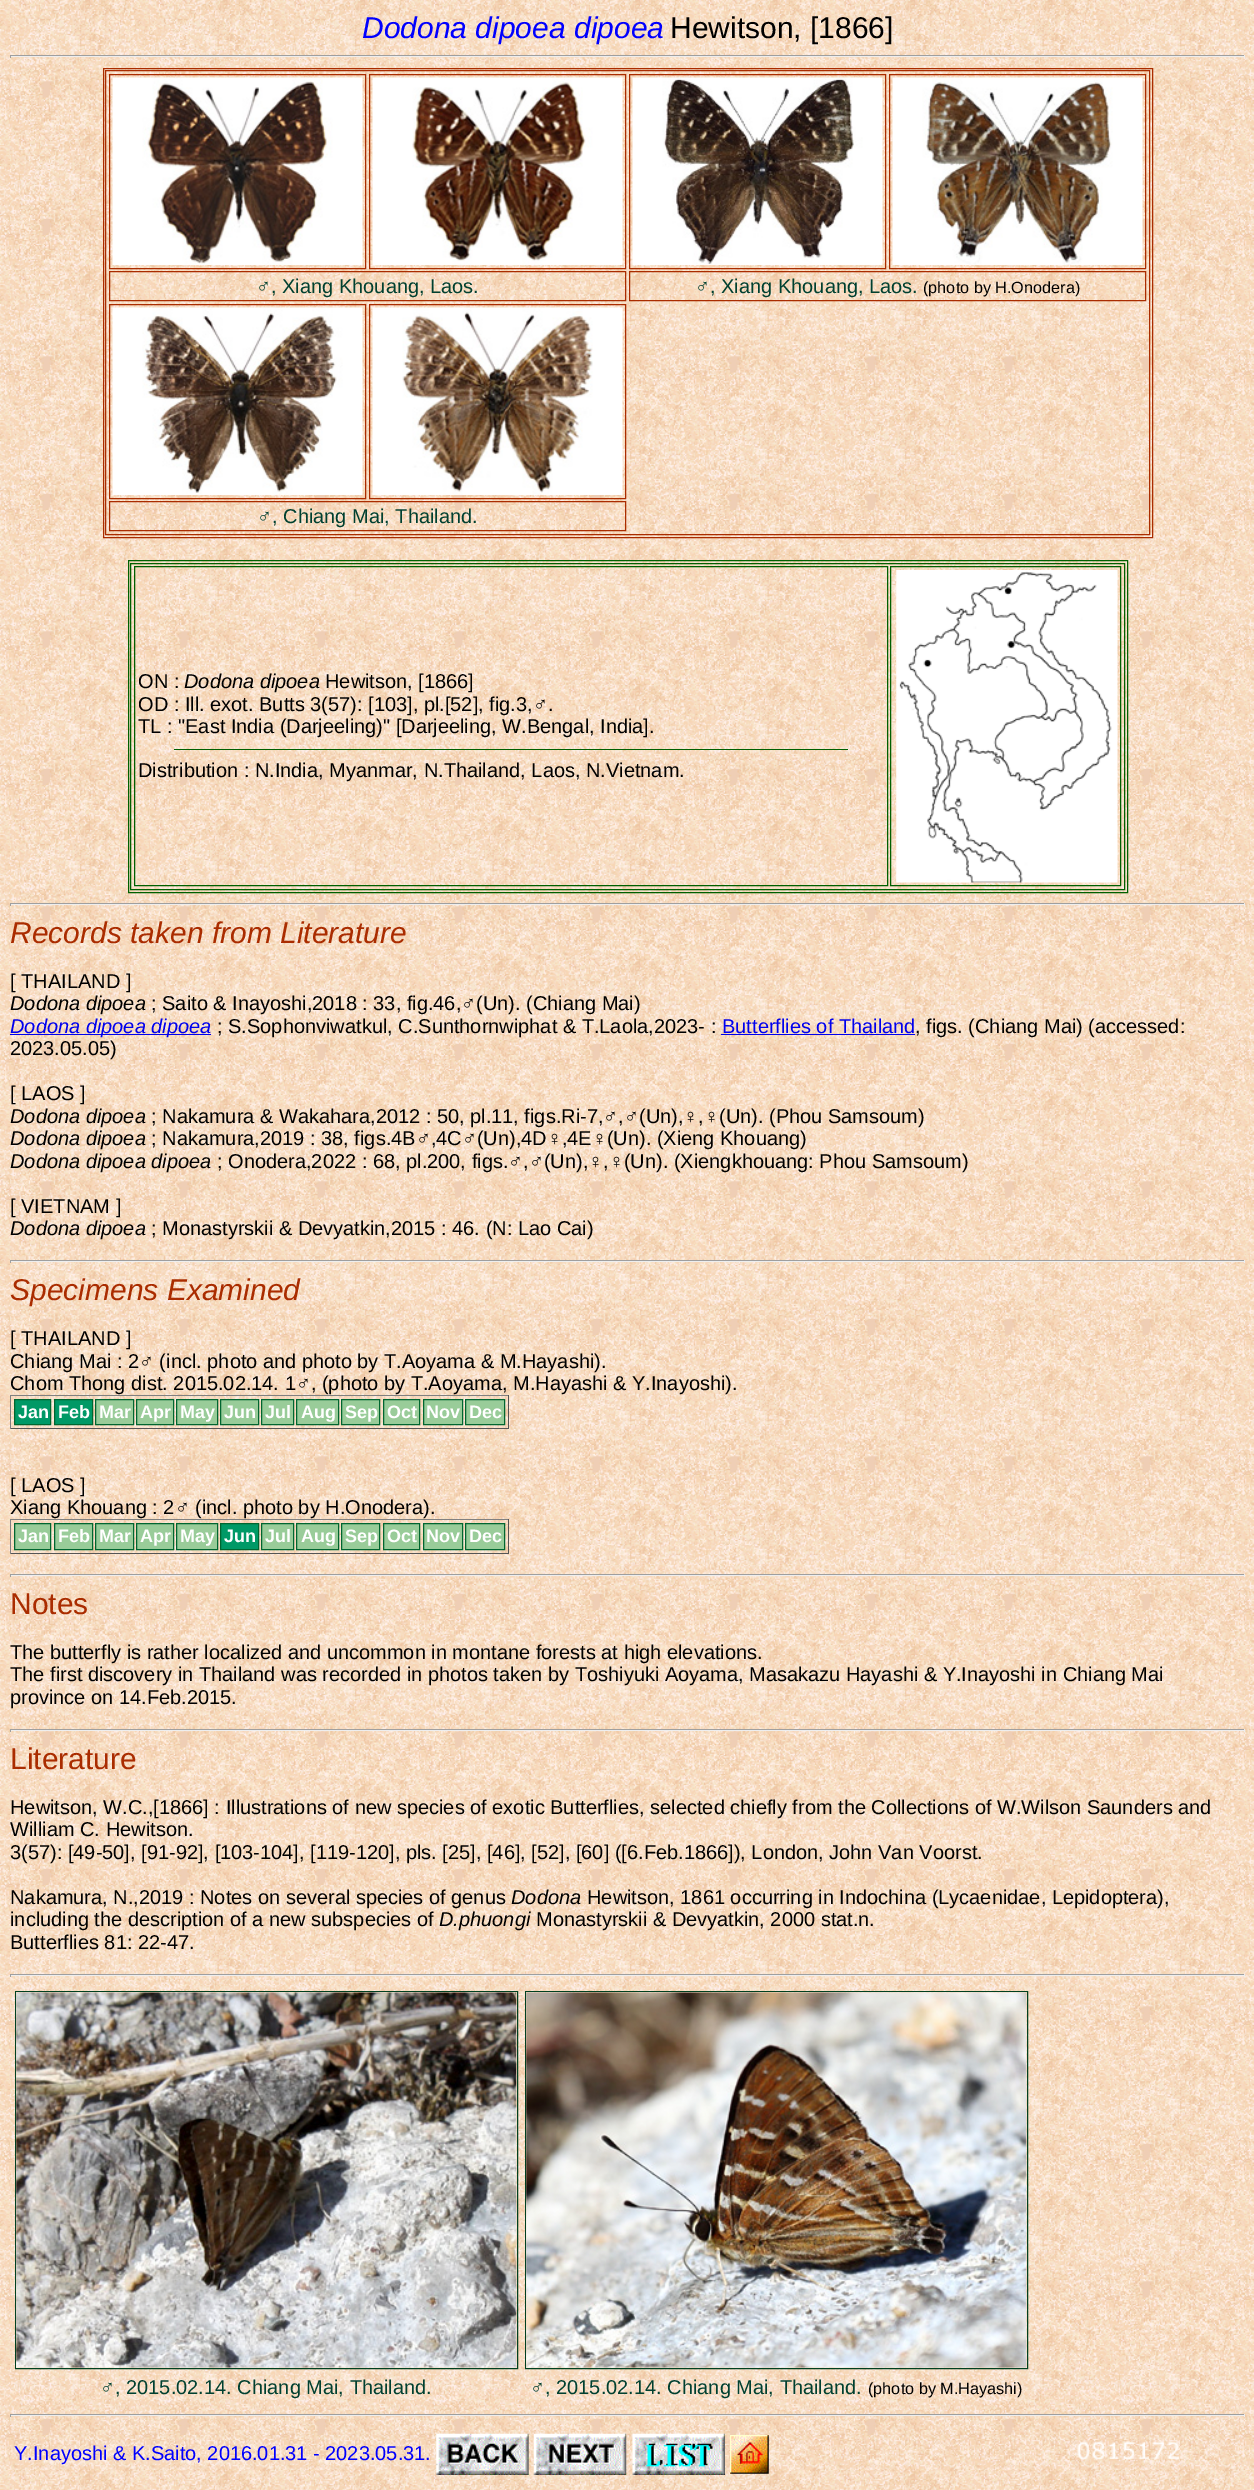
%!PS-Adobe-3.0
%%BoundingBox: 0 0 1254 2490
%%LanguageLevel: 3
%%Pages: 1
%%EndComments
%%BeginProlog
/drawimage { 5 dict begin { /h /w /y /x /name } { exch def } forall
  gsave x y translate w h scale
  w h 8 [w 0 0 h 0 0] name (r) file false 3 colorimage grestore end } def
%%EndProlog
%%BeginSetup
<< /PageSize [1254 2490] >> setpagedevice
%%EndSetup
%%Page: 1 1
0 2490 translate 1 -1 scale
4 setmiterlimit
1 setgray
0 0 1254 2490 rectfill
(images/1.raw) 0 0 1254 2490 drawimage
0.624 setgray
10 55 1235 1 rectfill
0.933 setgray
1244 55 1 3 rectfill
10 56 1235 1 rectfill
0.624 setgray
10 55 1 3 rectfill
0.667 0.173 0 setrgbcolor
103.5 68.5 1049 469 rectstroke
105.5 70.5 1044 464 rectstroke
109.5 74.5 256 194 rectstroke
(images/2.raw) 112 77 251 188 drawimage
369.5 74.5 256 194 rectstroke
(images/3.raw) 372 77 251 188 drawimage
629.5 74.5 256 194 rectstroke
(images/4.raw) 632 77 251 188 drawimage
889.5 74.5 256 194 rectstroke
(images/5.raw) 892 77 251 188 drawimage
109.5 271.5 516 29 rectstroke
629.5 271.5 516 29 rectstroke
109.5 304.5 256 194 rectstroke
(images/6.raw) 112 307 251 188 drawimage
369.5 304.5 256 194 rectstroke
(images/7.raw) 372 307 251 188 drawimage
109.5 501.5 516 29 rectstroke
0 0.376 0 setrgbcolor
128.5 560.5 999 332 rectstroke
130.5 563.5 994 326 rectstroke
134.5 566.5 753 319 rectstroke
174 749 674 1 rectfill
890.5 566.5 230 319 rectstroke
(images/8.raw) 896 570 222 313 drawimage
0.624 setgray
10 903 1235 1 rectfill
0.933 setgray
1244 903 1 3 rectfill
10 904 1235 1 rectfill
0.624 setgray
10 903 1 3 rectfill
0 0 0.933 setrgbcolor
10 1034 201 1 rectfill
721 1034 194 1 rectfill
0.624 setgray
10 1260 1235 1 rectfill
0.933 setgray
1244 1260 1 3 rectfill
10 1261 1235 1 rectfill
0.624 setgray
10 1260 1 3 rectfill
0.502 setgray
10 1395 499 1 rectfill
0.333 setgray
508 1395 1 34 rectfill
10 1428 499 1 rectfill
0.502 setgray
10 1395 1 34 rectfill
0 0.6 0.4 setrgbcolor
newpath 14.5 1399.5 moveto 50.5 1399.5 lineto 50.5 1424.5 lineto 14.5 1424.5 lineto closepath gsave fill grestore
0 0.4 0.188 setrgbcolor
stroke
0 0.6 0.4 setrgbcolor
newpath 54.5 1399.5 moveto 92.5 1399.5 lineto 92.5 1424.5 lineto 54.5 1424.5 lineto closepath gsave fill grestore
0 0.4 0.188 setrgbcolor
stroke
0.6 0.8 0.6 setrgbcolor
newpath 95.5 1399.5 moveto 133.5 1399.5 lineto 133.5 1424.5 lineto 95.5 1424.5 lineto closepath gsave fill grestore
0 0.4 0.188 setrgbcolor
stroke
0.6 0.8 0.6 setrgbcolor
newpath 136.5 1399.5 moveto 173.5 1399.5 lineto 173.5 1424.5 lineto 136.5 1424.5 lineto closepath gsave fill grestore
0 0.4 0.188 setrgbcolor
stroke
0.6 0.8 0.6 setrgbcolor
newpath 176.5 1399.5 moveto 217.5 1399.5 lineto 217.5 1424.5 lineto 176.5 1424.5 lineto closepath gsave fill grestore
0 0.4 0.188 setrgbcolor
stroke
0.6 0.8 0.6 setrgbcolor
newpath 220.5 1399.5 moveto 258.5 1399.5 lineto 258.5 1424.5 lineto 220.5 1424.5 lineto closepath gsave fill grestore
0 0.4 0.188 setrgbcolor
stroke
0.6 0.8 0.6 setrgbcolor
newpath 261.5 1399.5 moveto 293.5 1399.5 lineto 293.5 1424.5 lineto 261.5 1424.5 lineto closepath gsave fill grestore
0 0.4 0.188 setrgbcolor
stroke
0.6 0.8 0.6 setrgbcolor
newpath 296.5 1399.5 moveto 338.5 1399.5 lineto 338.5 1424.5 lineto 296.5 1424.5 lineto closepath gsave fill grestore
0 0.4 0.188 setrgbcolor
stroke
0.6 0.8 0.6 setrgbcolor
newpath 341.5 1399.5 moveto 379.5 1399.5 lineto 379.5 1424.5 lineto 341.5 1424.5 lineto closepath gsave fill grestore
0 0.4 0.188 setrgbcolor
stroke
0.6 0.8 0.6 setrgbcolor
newpath 383.5 1399.5 moveto 419.5 1399.5 lineto 419.5 1424.5 lineto 383.5 1424.5 lineto closepath gsave fill grestore
0 0.4 0.188 setrgbcolor
stroke
0.6 0.8 0.6 setrgbcolor
newpath 423.5 1399.5 moveto 462.5 1399.5 lineto 462.5 1424.5 lineto 423.5 1424.5 lineto closepath gsave fill grestore
0 0.4 0.188 setrgbcolor
stroke
0.6 0.8 0.6 setrgbcolor
newpath 465.5 1399.5 moveto 504.5 1399.5 lineto 504.5 1424.5 lineto 465.5 1424.5 lineto closepath gsave fill grestore
0 0.4 0.188 setrgbcolor
stroke
0.502 setgray
10 1519 499 1 rectfill
0.333 setgray
508 1519 1 35 rectfill
10 1553 499 1 rectfill
0.502 setgray
10 1519 1 35 rectfill
0.6 0.8 0.6 setrgbcolor
newpath 14.5 1523.5 moveto 50.5 1523.5 lineto 50.5 1549.5 lineto 14.5 1549.5 lineto closepath gsave fill grestore
0 0.4 0.188 setrgbcolor
stroke
0.6 0.8 0.6 setrgbcolor
newpath 54.5 1523.5 moveto 92.5 1523.5 lineto 92.5 1549.5 lineto 54.5 1549.5 lineto closepath gsave fill grestore
0 0.4 0.188 setrgbcolor
stroke
0.6 0.8 0.6 setrgbcolor
newpath 95.5 1523.5 moveto 133.5 1523.5 lineto 133.5 1549.5 lineto 95.5 1549.5 lineto closepath gsave fill grestore
0 0.4 0.188 setrgbcolor
stroke
0.6 0.8 0.6 setrgbcolor
newpath 136.5 1523.5 moveto 173.5 1523.5 lineto 173.5 1549.5 lineto 136.5 1549.5 lineto closepath gsave fill grestore
0 0.4 0.188 setrgbcolor
stroke
0.6 0.8 0.6 setrgbcolor
newpath 176.5 1523.5 moveto 217.5 1523.5 lineto 217.5 1549.5 lineto 176.5 1549.5 lineto closepath gsave fill grestore
0 0.4 0.188 setrgbcolor
stroke
0 0.6 0.4 setrgbcolor
newpath 220.5 1523.5 moveto 258.5 1523.5 lineto 258.5 1549.5 lineto 220.5 1549.5 lineto closepath gsave fill grestore
0 0.4 0.188 setrgbcolor
stroke
0.6 0.8 0.6 setrgbcolor
newpath 261.5 1523.5 moveto 293.5 1523.5 lineto 293.5 1549.5 lineto 261.5 1549.5 lineto closepath gsave fill grestore
0 0.4 0.188 setrgbcolor
stroke
0.6 0.8 0.6 setrgbcolor
newpath 296.5 1523.5 moveto 338.5 1523.5 lineto 338.5 1549.5 lineto 296.5 1549.5 lineto closepath gsave fill grestore
0 0.4 0.188 setrgbcolor
stroke
0.6 0.8 0.6 setrgbcolor
newpath 341.5 1523.5 moveto 379.5 1523.5 lineto 379.5 1549.5 lineto 341.5 1549.5 lineto closepath gsave fill grestore
0 0.4 0.188 setrgbcolor
stroke
0.6 0.8 0.6 setrgbcolor
newpath 383.5 1523.5 moveto 419.5 1523.5 lineto 419.5 1549.5 lineto 383.5 1549.5 lineto closepath gsave fill grestore
0 0.4 0.188 setrgbcolor
stroke
0.6 0.8 0.6 setrgbcolor
newpath 423.5 1523.5 moveto 462.5 1523.5 lineto 462.5 1549.5 lineto 423.5 1549.5 lineto closepath gsave fill grestore
0 0.4 0.188 setrgbcolor
stroke
0.6 0.8 0.6 setrgbcolor
newpath 465.5 1523.5 moveto 504.5 1523.5 lineto 504.5 1549.5 lineto 465.5 1549.5 lineto closepath gsave fill grestore
0 0.4 0.188 setrgbcolor
stroke
0.624 setgray
10 1574 1235 1 rectfill
0.933 setgray
1244 1574 1 3 rectfill
10 1575 1235 1 rectfill
0.624 setgray
10 1574 1 3 rectfill
10 1729 1235 1 rectfill
0.933 setgray
1244 1729 1 3 rectfill
10 1730 1235 1 rectfill
0.624 setgray
10 1729 1 3 rectfill
10 1974 1235 1 rectfill
0.933 setgray
1244 1974 1 3 rectfill
10 1975 1235 1 rectfill
0.624 setgray
10 1974 1 3 rectfill
0 0.251 0.125 setrgbcolor
15.5 1991.5 502 377 rectstroke
(images/9.raw) 16 1992 501 376 drawimage
525.5 1991.5 502 377 rectstroke
(images/10.raw) 526 1992 501 376 drawimage
0.624 setgray
10 2414 1235 1 rectfill
0.933 setgray
1244 2414 1 3 rectfill
10 2415 1235 1 rectfill
0.624 setgray
10 2414 1 3 rectfill
(images/11.raw) 436 2433 93 42 drawimage
(images/12.raw) 533 2433 94 42 drawimage
(images/13.raw) 632 2433 93 42 drawimage
(images/14.raw) 730 2435 39 39 drawimage
(images/15.raw) 1077 2441 103 19 drawimage
/LiberationSans-Italic [30 0 0 -30 0 0] selectfont
0 0 1 setrgbcolor
362 38 moveto (Dodona dipoea dipoea) show
/LiberationSans-Regular [30 0 0 -30 0 0] selectfont
0 setgray
670 38 moveto (Hewitson, [1866]) show
/LiberationSans-Regular [20 0 0 -20 0 0] selectfont
0 0.251 0.188 setrgbcolor
256 293 moveto (♂, Xiang Khouang, Laos.) show
695 293 moveto (♂, Xiang Khouang, Laos.) show
/LiberationSans-Regular [16.25 0 0 -16.25 0 0] selectfont
0 setgray
923 293 moveto (\(photo by H.Onodera\)) show
/LiberationSans-Regular [20 0 0 -20 0 0] selectfont
0 0.251 0.188 setrgbcolor
257 523 moveto (♂, Chiang Mai, Thailand.) show
0 setgray
138 688 moveto (ON :) show
/LiberationSans-Italic [20 0 0 -20 0 0] selectfont
184 688 moveto (Dodona dipoea) show
/LiberationSans-Regular [20 0 0 -20 0 0] selectfont
325 688 moveto (Hewitson, [1866]) show
138 711 moveto (OD : Ill. exot. Butts 3\(57\): [103], pl.[52], fig.3,♂.) show
138 733 moveto (TL : "East India \(Darjeeling\)" [Darjeeling, W.Bengal, India].) show
138 777 moveto (Distribution : N.India, Myanmar, N.Thailand, Laos, N.Vietnam.) show
/LiberationSans-Italic [30 0 0 -30 0 0] selectfont
0.667 0.173 0 setrgbcolor
10 943 moveto (Records taken from Literature) show
/LiberationSans-Regular [20 0 0 -20 0 0] selectfont
0 setgray
10 988 moveto ([ THAILAND ]) show
/LiberationSans-Italic [20 0 0 -20 0 0] selectfont
10 1010 moveto (Dodona dipoea) show
/LiberationSans-Regular [20 0 0 -20 0 0] selectfont
151 1010 moveto (; Saito & Inayoshi,2018 : 33, fig.46,♂\(Un\). \(Chiang Mai\)) show
/LiberationSans-Italic [20 0 0 -20 0 0] selectfont
0 0 0.933 setrgbcolor
10 1033 moveto (Dodona dipoea dipoea) show
/LiberationSans-Regular [20 0 0 -20 0 0] selectfont
0 setgray
217 1033 moveto (; S.Sophonviwatkul, C.Sunthornwiphat & T.Laola,2023- :) show
0 0 0.933 setrgbcolor
722 1033 moveto (Butterflies of Thailand) show
0 setgray
915 1033 moveto (, figs. \(Chiang Mai\) \(accessed:) show
10 1055 moveto (2023.05.05\)) show
10 1100 moveto ([ LAOS ]) show
/LiberationSans-Italic [20 0 0 -20 0 0] selectfont
10 1123 moveto (Dodona dipoea) show
/LiberationSans-Regular [20 0 0 -20 0 0] selectfont
151 1123 moveto (; Nakamura & Wakahara,2012 : 50, pl.11, figs.Ri-7,♂,♂\(Un\),♀,♀\(Un\). \(Phou Samsoum\)) show
/LiberationSans-Italic [20 0 0 -20 0 0] selectfont
10 1145 moveto (Dodona dipoea) show
/LiberationSans-Regular [20 0 0 -20 0 0] selectfont
151 1145 moveto (; Nakamura,2019 : 38, figs.4B♂,4C♂\(Un\),4D♀,4E♀\(Un\). \(Xieng Khouang\)) show
/LiberationSans-Italic [20 0 0 -20 0 0] selectfont
10 1168 moveto (Dodona dipoea dipoea) show
/LiberationSans-Regular [20 0 0 -20 0 0] selectfont
217 1168 moveto (; Onodera,2022 : 68, pl.200, figs.♂,♂\(Un\),♀,♀\(Un\). \(Xiengkhouang: Phou Samsoum\)) show
10 1213 moveto ([ VIETNAM ]) show
/LiberationSans-Italic [20 0 0 -20 0 0] selectfont
10 1235 moveto (Dodona dipoea) show
/LiberationSans-Regular [20 0 0 -20 0 0] selectfont
151 1235 moveto (; Monastyrskii & Devyatkin,2015 : 46. \(N: Lao Cai\)) show
/LiberationSans-Italic [30 0 0 -30 0 0] selectfont
0.667 0.173 0 setrgbcolor
10 1300 moveto (Specimens Examined) show
/LiberationSans-Regular [20 0 0 -20 0 0] selectfont
0 setgray
10 1345 moveto ([ THAILAND ]) show
10 1368 moveto (Chiang Mai : 2♂ \(incl. photo and photo by T.Aoyama & M.Hayashi\).) show
10 1390 moveto (Chom Thong dist. 2015.02.14. 1♂, \(photo by T.Aoyama, M.Hayashi & Y.Inayoshi\).) show
/LiberationSans-Bold [18 0 0 -18 0 0] selectfont
1 setgray
18 1418 moveto (Jan) show
58 1418 moveto (Feb) show
99 1418 moveto (Mar) show
140 1418 moveto (Apr) show
180 1418 moveto (May) show
224 1418 moveto (Jun) show
265 1418 moveto (Jul) show
301 1418 moveto (Aug) show
345 1418 moveto (Sep) show
387 1418 moveto (Oct) show
426 1418 moveto (Nov) show
469 1418 moveto (Dec) show
/LiberationSans-Regular [20 0 0 -20 0 0] selectfont
0 setgray
10 1492 moveto ([ LAOS ]) show
10 1514 moveto (Xiang Khouang : 2♂ \(incl. photo by H.Onodera\).) show
/LiberationSans-Bold [18 0 0 -18 0 0] selectfont
1 setgray
18 1542 moveto (Jan) show
58 1542 moveto (Feb) show
99 1542 moveto (Mar) show
140 1542 moveto (Apr) show
180 1542 moveto (May) show
224 1542 moveto (Jun) show
265 1542 moveto (Jul) show
301 1542 moveto (Aug) show
345 1542 moveto (Sep) show
387 1542 moveto (Oct) show
426 1542 moveto (Nov) show
469 1542 moveto (Dec) show
/LiberationSans-Regular [30 0 0 -30 0 0] selectfont
0.667 0.173 0 setrgbcolor
10 1614 moveto (Notes) show
/LiberationSans-Regular [20 0 0 -20 0 0] selectfont
0 setgray
10 1659 moveto (The butterfly is rather localized and uncommon in montane forests at high elevations.) show
10 1681 moveto (The first discovery in Thailand was recorded in photos taken by Toshiyuki Aoyama, Masakazu Hayashi & Y.Inayoshi in Chiang Mai) show
10 1704 moveto (province on 14.Feb.2015.) show
/LiberationSans-Regular [30 0 0 -30 0 0] selectfont
0.667 0.173 0 setrgbcolor
10 1769 moveto (Literature) show
/LiberationSans-Regular [20 0 0 -20 0 0] selectfont
0 setgray
10 1814 moveto (Hewitson, W.C.,[1866] : Illustrations of new species of exotic Butterflies, selected chiefly from the Collections of W.Wilson Saunders and) show
10 1836 moveto (William C. Hewitson.) show
10 1859 moveto (3\(57\): [49-50], [91-92], [103-104], [119-120], pls. [25], [46], [52], [60] \([6.Feb.1866]\), London, John Van Voorst.) show
10 1904 moveto (Nakamura, N.,2019 : Notes on several species of genus) show
/LiberationSans-Italic [20 0 0 -20 0 0] selectfont
511 1904 moveto (Dodona) show
/LiberationSans-Regular [20 0 0 -20 0 0] selectfont
587 1904 moveto (Hewitson, 1861 occurring in Indochina \(Lycaenidae, Lepidoptera\),) show
10 1926 moveto (including the description of a new subspecies of) show
/LiberationSans-Italic [20 0 0 -20 0 0] selectfont
439 1926 moveto (D.phuongi) show
/LiberationSans-Regular [20 0 0 -20 0 0] selectfont
536 1926 moveto (Monastyrskii & Devyatkin, 2000 stat.n.) show
10 1949 moveto (Butterflies 81: 22-47.) show
0 0.251 0.188 setrgbcolor
100 2394 moveto (♂, 2015.02.14. Chiang Mai, Thailand.) show
530 2394 moveto (♂, 2015.02.14. Chiang Mai, Thailand.) show
/LiberationSans-Regular [16.25 0 0 -16.25 0 0] selectfont
0 setgray
868 2394 moveto (\(photo by M.Hayashi\)) show
/LiberationSans-Regular [20 0 0 -20 0 0] selectfont
0 0 1 setrgbcolor
14 2460 moveto (Y.Inayoshi & K.Saito, 2016.01.31 - 2023.05.31.) show
showpage
%%EOF
